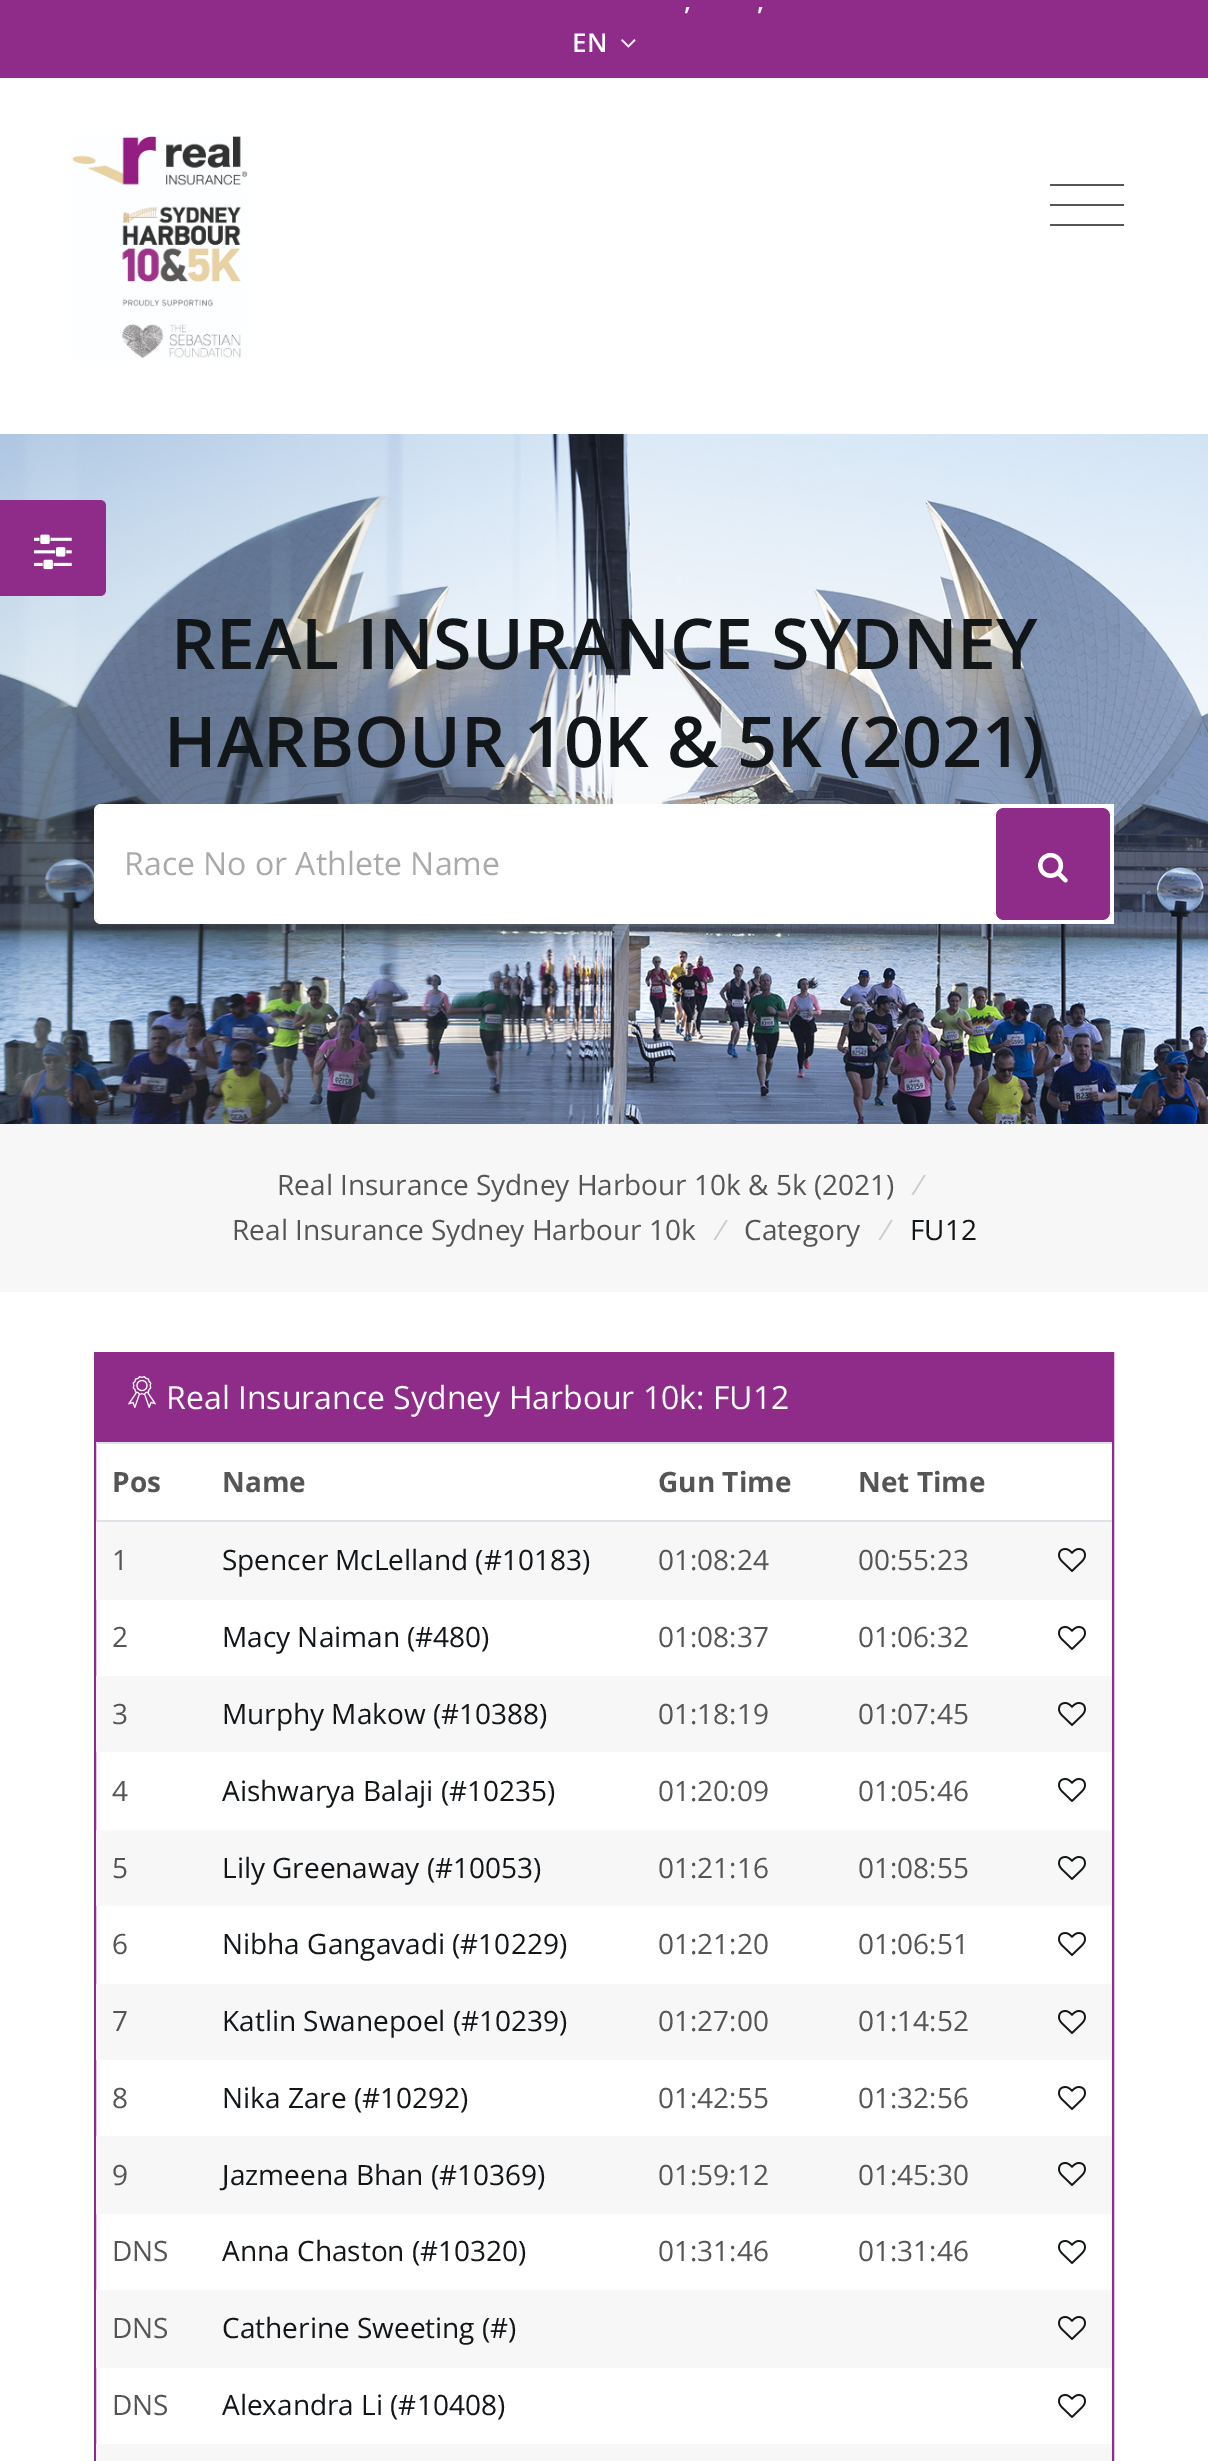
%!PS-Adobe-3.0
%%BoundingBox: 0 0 1208 2461
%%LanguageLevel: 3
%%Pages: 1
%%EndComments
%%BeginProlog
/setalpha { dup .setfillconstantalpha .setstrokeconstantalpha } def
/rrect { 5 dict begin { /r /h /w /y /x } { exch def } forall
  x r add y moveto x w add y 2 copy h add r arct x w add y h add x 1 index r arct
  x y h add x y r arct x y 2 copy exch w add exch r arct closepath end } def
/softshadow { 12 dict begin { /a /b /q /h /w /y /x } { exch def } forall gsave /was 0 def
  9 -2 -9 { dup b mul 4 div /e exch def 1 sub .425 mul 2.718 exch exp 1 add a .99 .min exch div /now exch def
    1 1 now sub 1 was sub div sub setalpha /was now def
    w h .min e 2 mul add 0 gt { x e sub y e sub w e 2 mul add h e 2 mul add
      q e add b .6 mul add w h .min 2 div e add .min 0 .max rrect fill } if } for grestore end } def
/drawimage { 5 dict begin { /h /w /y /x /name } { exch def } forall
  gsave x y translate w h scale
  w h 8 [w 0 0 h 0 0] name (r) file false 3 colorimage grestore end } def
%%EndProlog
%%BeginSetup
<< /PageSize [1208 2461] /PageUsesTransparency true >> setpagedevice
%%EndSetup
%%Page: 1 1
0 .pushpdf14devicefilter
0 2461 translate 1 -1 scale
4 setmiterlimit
1 setgray
0 0 1208 2461 rectfill
0.561 0.169 0.537 setrgbcolor
0 0 1208 78 rectfill
(images/1.raw) 621 39 15 9 drawimage
(images/2.raw) 72 136 176 223 drawimage
0.333 setgray
1050 184 74 2 rectfill
1050 204 74 2 rectfill
1050 224 74 2 rectfill
(images/4.raw) 0 434 1208 690 drawimage
0.561 0.169 0.537 setrgbcolor
newpath 0 500 moveto 100 500 lineto 103.5 500 106 502.5 106 506 curveto 106 590 lineto 106 593.5 103.5 596 100 596 curveto 0 596 lineto closepath fill
(images/3.raw) 34 534 38 36 drawimage
0 setgray
118 868 972 72 0 25 0.09 softshadow
1 setgray
newpath 101 806 moveto 992 806 lineto 992 922 lineto 101 922 lineto 98 922 96 920 96 917 curveto 96 811 lineto 96 808 98 806 101 806 curveto closepath fill
newpath 101 804 moveto 992 804 lineto 992 924 lineto 101 924 lineto 97 924 94 921 94 917 curveto 94 811 lineto 94 807 97 804 101 804 curveto closepath 101 806 moveto 992 806 lineto 992 922 lineto 101 922 lineto 98 922 96 920 96 917 curveto 96 811 lineto 96 808 98 806 101 806 curveto closepath eofill
992 804 122 120 rectfill
0.561 0.169 0.537 setrgbcolor
996 808 114 112 8 rrect fill
(images/5.raw) 1038 852 30 31 drawimage
0.969 setgray
0 1124 1208 168 rectfill
0.561 0.169 0.537 setrgbcolor
2 setlinewidth
95 1353 1018 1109 rectstroke
96 1354 1016 88 rectfill
(images/6.raw) 128 1376 28 32 drawimage
0.871 0.886 0.902 setrgbcolor
96 1442 1016 2 rectfill
96 1520 1016 2 rectfill
0.969 setgray
96 1522 1016 78 rectfill
(images/7.raw) 1058 1548 28 24 drawimage
(images/8.raw) 1058 1626 28 24 drawimage
96 1676 1016 76 rectfill
(images/7.raw) 1058 1702 28 24 drawimage
(images/8.raw) 1058 1778 28 24 drawimage
96 1830 1016 76 rectfill
(images/7.raw) 1058 1856 28 24 drawimage
(images/8.raw) 1058 1932 28 24 drawimage
96 1984 1016 76 rectfill
(images/7.raw) 1058 2010 28 24 drawimage
(images/8.raw) 1058 2086 28 24 drawimage
96 2136 1016 78 rectfill
(images/7.raw) 1058 2162 28 24 drawimage
(images/8.raw) 1058 2240 28 24 drawimage
96 2290 1016 78 rectfill
(images/7.raw) 1058 2316 28 24 drawimage
(images/8.raw) 1058 2394 28 24 drawimage
96 2444 1016 17 rectfill
/OpenSans-SemiBold [26 0 0 -26 0 0] selectfont
1 setgray
684 10 moveto (,) show
757 10 moveto (,) show
572 52 moveto (EN) show
/OpenSans-SemiBold [70 0 0 -70 0 0] selectfont
0.071 0.086 0.094 setrgbcolor
171 669 moveto (REAL INSURANCE SYDNEY) show
164 767 moveto (HARBOUR 10K & 5K \(2021\)) show
/OpenSans-Regular [32 0 0 -32 0 0] selectfont
0.667 setgray
124 875 moveto (Race No or Athlete Name) show
/OpenSans-Regular [28 0 0 -28 0 0] selectfont
0.333 setgray
277 1195 moveto (Real Insurance Sydney Harbour 10k & 5k \(2021\)) show
/OpenSans-Italic [28 0 0 -28 0 0] selectfont
0.8 setgray
911 1195 moveto (/) show
/OpenSans-Regular [28 0 0 -28 0 0] selectfont
0.333 setgray
232 1240 moveto (Real Insurance Sydney Harbour 10k) show
/OpenSans-Italic [28 0 0 -28 0 0] selectfont
0.8 setgray
713 1240 moveto (/) show
/OpenSans-Regular [28 0 0 -28 0 0] selectfont
0.333 setgray
744 1240 moveto (Category) show
/OpenSans-Italic [28 0 0 -28 0 0] selectfont
0.8 setgray
878 1240 moveto (/) show
/OpenSans-Regular [28 0 0 -28 0 0] selectfont
0.071 0.086 0.094 setrgbcolor
910 1240 moveto (FU12) show
/OpenSans-Regular [32 0 0 -32 0 0] selectfont
1 setgray
166 1409 moveto (Real Insurance Sydney Harbour 10k: FU12) show
/OpenSans-Bold [28 0 0 -28 0 0] selectfont
0.333 setgray
112 1492 moveto (Pos) show
222 1492 moveto (Name) show
658 1492 moveto (Gun Time) show
858 1492 moveto (Net Time) show
/OpenSans-Regular [28 0 0 -28 0 0] selectfont
112 1570 moveto (1) show
0.071 0.086 0.094 setrgbcolor
222 1570 moveto (Spencer McLelland \(#10183\)) show
0.333 setgray
658 1570 moveto (01:08:24) show
858 1570 moveto (00:55:23) show
112 1647 moveto (2) show
0.071 0.086 0.094 setrgbcolor
222 1647 moveto (Macy Naiman \(#480\)) show
0.333 setgray
658 1647 moveto (01:08:37) show
858 1647 moveto (01:06:32) show
112 1724 moveto (3) show
0.071 0.086 0.094 setrgbcolor
222 1724 moveto (Murphy Makow \(#10388\)) show
0.333 setgray
658 1724 moveto (01:18:19) show
858 1724 moveto (01:07:45) show
112 1801 moveto (4) show
0.071 0.086 0.094 setrgbcolor
222 1801 moveto (Aishwarya Balaji \(#10235\)) show
0.333 setgray
658 1801 moveto (01:20:09) show
858 1801 moveto (01:05:46) show
112 1878 moveto (5) show
0.071 0.086 0.094 setrgbcolor
222 1878 moveto (Lily Greenaway \(#10053\)) show
0.333 setgray
658 1878 moveto (01:21:16) show
858 1878 moveto (01:08:55) show
112 1954 moveto (6) show
0.071 0.086 0.094 setrgbcolor
222 1954 moveto (Nibha Gangavadi \(#10229\)) show
0.333 setgray
658 1954 moveto (01:21:20) show
858 1954 moveto (01:06:51) show
112 2031 moveto (7) show
0.071 0.086 0.094 setrgbcolor
222 2031 moveto (Katlin Swanepoel \(#10239\)) show
0.333 setgray
658 2031 moveto (01:27:00) show
858 2031 moveto (01:14:52) show
112 2108 moveto (8) show
0.071 0.086 0.094 setrgbcolor
222 2108 moveto (Nika Zare \(#10292\)) show
0.333 setgray
658 2108 moveto (01:42:55) show
858 2108 moveto (01:32:56) show
112 2185 moveto (9) show
0.071 0.086 0.094 setrgbcolor
222 2185 moveto (Jazmeena Bhan \(#10369\)) show
0.333 setgray
658 2185 moveto (01:59:12) show
858 2185 moveto (01:45:30) show
112 2261 moveto (DNS) show
0.071 0.086 0.094 setrgbcolor
222 2261 moveto (Anna Chaston \(#10320\)) show
0.333 setgray
658 2261 moveto (01:31:46) show
858 2261 moveto (01:31:46) show
112 2338 moveto (DNS) show
0.071 0.086 0.094 setrgbcolor
222 2338 moveto (Catherine Sweeting \(#\)) show
0.333 setgray
112 2415 moveto (DNS) show
0.071 0.086 0.094 setrgbcolor
222 2415 moveto (Alexandra Li \(#10408\)) show
.poppdf14devicefilter showpage
%%EOF
